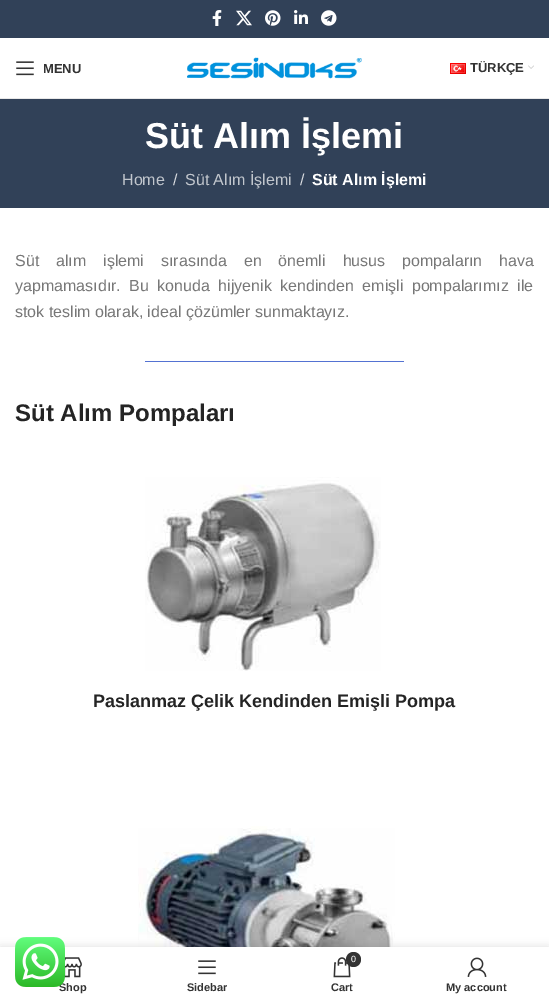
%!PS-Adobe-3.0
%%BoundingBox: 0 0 549 1002
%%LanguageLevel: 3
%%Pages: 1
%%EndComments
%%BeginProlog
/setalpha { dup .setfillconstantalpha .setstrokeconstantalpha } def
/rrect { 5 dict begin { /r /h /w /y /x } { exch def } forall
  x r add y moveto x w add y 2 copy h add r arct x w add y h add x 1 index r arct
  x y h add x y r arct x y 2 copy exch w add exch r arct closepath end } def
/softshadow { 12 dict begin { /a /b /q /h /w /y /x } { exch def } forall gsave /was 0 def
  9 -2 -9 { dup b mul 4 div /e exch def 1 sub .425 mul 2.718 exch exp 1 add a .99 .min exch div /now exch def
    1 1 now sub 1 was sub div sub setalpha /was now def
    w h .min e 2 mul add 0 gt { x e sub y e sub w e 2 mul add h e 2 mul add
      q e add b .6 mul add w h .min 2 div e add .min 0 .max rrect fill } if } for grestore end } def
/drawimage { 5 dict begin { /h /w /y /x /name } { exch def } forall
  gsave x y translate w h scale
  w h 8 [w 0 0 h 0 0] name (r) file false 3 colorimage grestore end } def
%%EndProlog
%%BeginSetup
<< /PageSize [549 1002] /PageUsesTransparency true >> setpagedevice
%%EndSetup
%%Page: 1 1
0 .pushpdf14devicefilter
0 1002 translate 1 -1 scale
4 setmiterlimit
1 setgray
0 0 549 1002 rectfill
0.192 0.255 0.345 setrgbcolor
0 0 549 38 rectfill
(images/1.raw) 212 10 10 16 drawimage
(images/2.raw) 236 10 16 16 drawimage
(images/3.raw) 265 10 16 16 drawimage
(images/4.raw) 294 10 14 14 drawimage
(images/5.raw) 321 10 16 16 drawimage
0.91 setgray
0 98 549 1 rectfill
(images/6.raw) 16 61 18 15 drawimage
(images/7.raw) 187 57 175 22 drawimage
(images/8.raw) 450 63 16 11 drawimage
(images/9.raw) 528 65 6 4 drawimage
0.192 0.255 0.345 setrgbcolor
0 99 549 109 rectfill
0.329 0.447 0.824 setrgbcolor
145 361 259 1 rectfill
(images/10.raw) 145 477 236 194 drawimage
(images/11.raw) 138 826 257 121 drawimage
0 setgray
0 947 549 55 0 4.5 0.12 softshadow
1 setgray
0 947 549 55 rectfill
(images/13.raw) 64 957 18 21 drawimage
(images/6.raw) 198 960 18 15 drawimage
(images/14.raw) 333 957 18 21 drawimage
0.2 setgray
newpath 353.5 959.5 7.5 0 360 arc closepath fill
(images/15.raw) 467 957 20 20 drawimage
/LiberationSans-Bold [13 0 0 -13 0 0] selectfont
43 73 moveto (MENU) show
470 72 moveto (TÜRKÇE) show
/LiberationSans-Bold [36 0 0 -36 0 0] selectfont
1 setgray
145 148 moveto (Süt Alım İşlemi) show
/LiberationSans-Regular [16 0 0 -16 0 0] selectfont
0.757 0.776 0.804 setrgbcolor
122 185 moveto (Home) show
0.839 0.851 0.871 setrgbcolor
173 185 moveto (/) show
0.757 0.776 0.804 setrgbcolor
185 185 moveto (Süt Alım İşlemi) show
0.839 0.851 0.871 setrgbcolor
300 185 moveto (/) show
/LiberationSans-Bold [16 0 0 -16 0 0] selectfont
1 setgray
312 185 moveto (Süt Alım İşlemi) show
/LiberationSans-Regular [16 0 0 -16 0 0] selectfont
0.467 setgray
15 266 moveto 12.5 0 32 (Süt alım işlemi sırasında en önemli husus pompaların hava) widthshow
15 291 moveto 4 0 32 (yapmamasıdır. Bu konuda hijyenik kendinden emişli pompalarımız ile) widthshow
15 317 moveto (stok teslim olarak, ideal çözümler sunmaktayız.) show
/LiberationSans-Bold [24 0 0 -24 0 0] selectfont
0.141 setgray
15 421 moveto (Süt Alım Pompaları) show
/LiberationSans-Bold [18 0 0 -18 0 0] selectfont
93 707 moveto (Paslanmaz Çelik Kendinden Emişli Pompa) show
/LiberationSans-Bold [11 0 0 -11 0 0] selectfont
0.2 setgray
59 991 moveto (Shop) show
(images/12.raw) 15 937 50 50 drawimage
187 991 moveto (Sidebar) show
/LiberationSans-Regular [9 0 0 -9 0 0] selectfont
1 setgray
351 962 moveto (0) show
/LiberationSans-Bold [11 0 0 -11 0 0] selectfont
0.2 setgray
331 991 moveto (Cart) show
446 991 moveto (My account) show
.poppdf14devicefilter showpage
%%EOF
